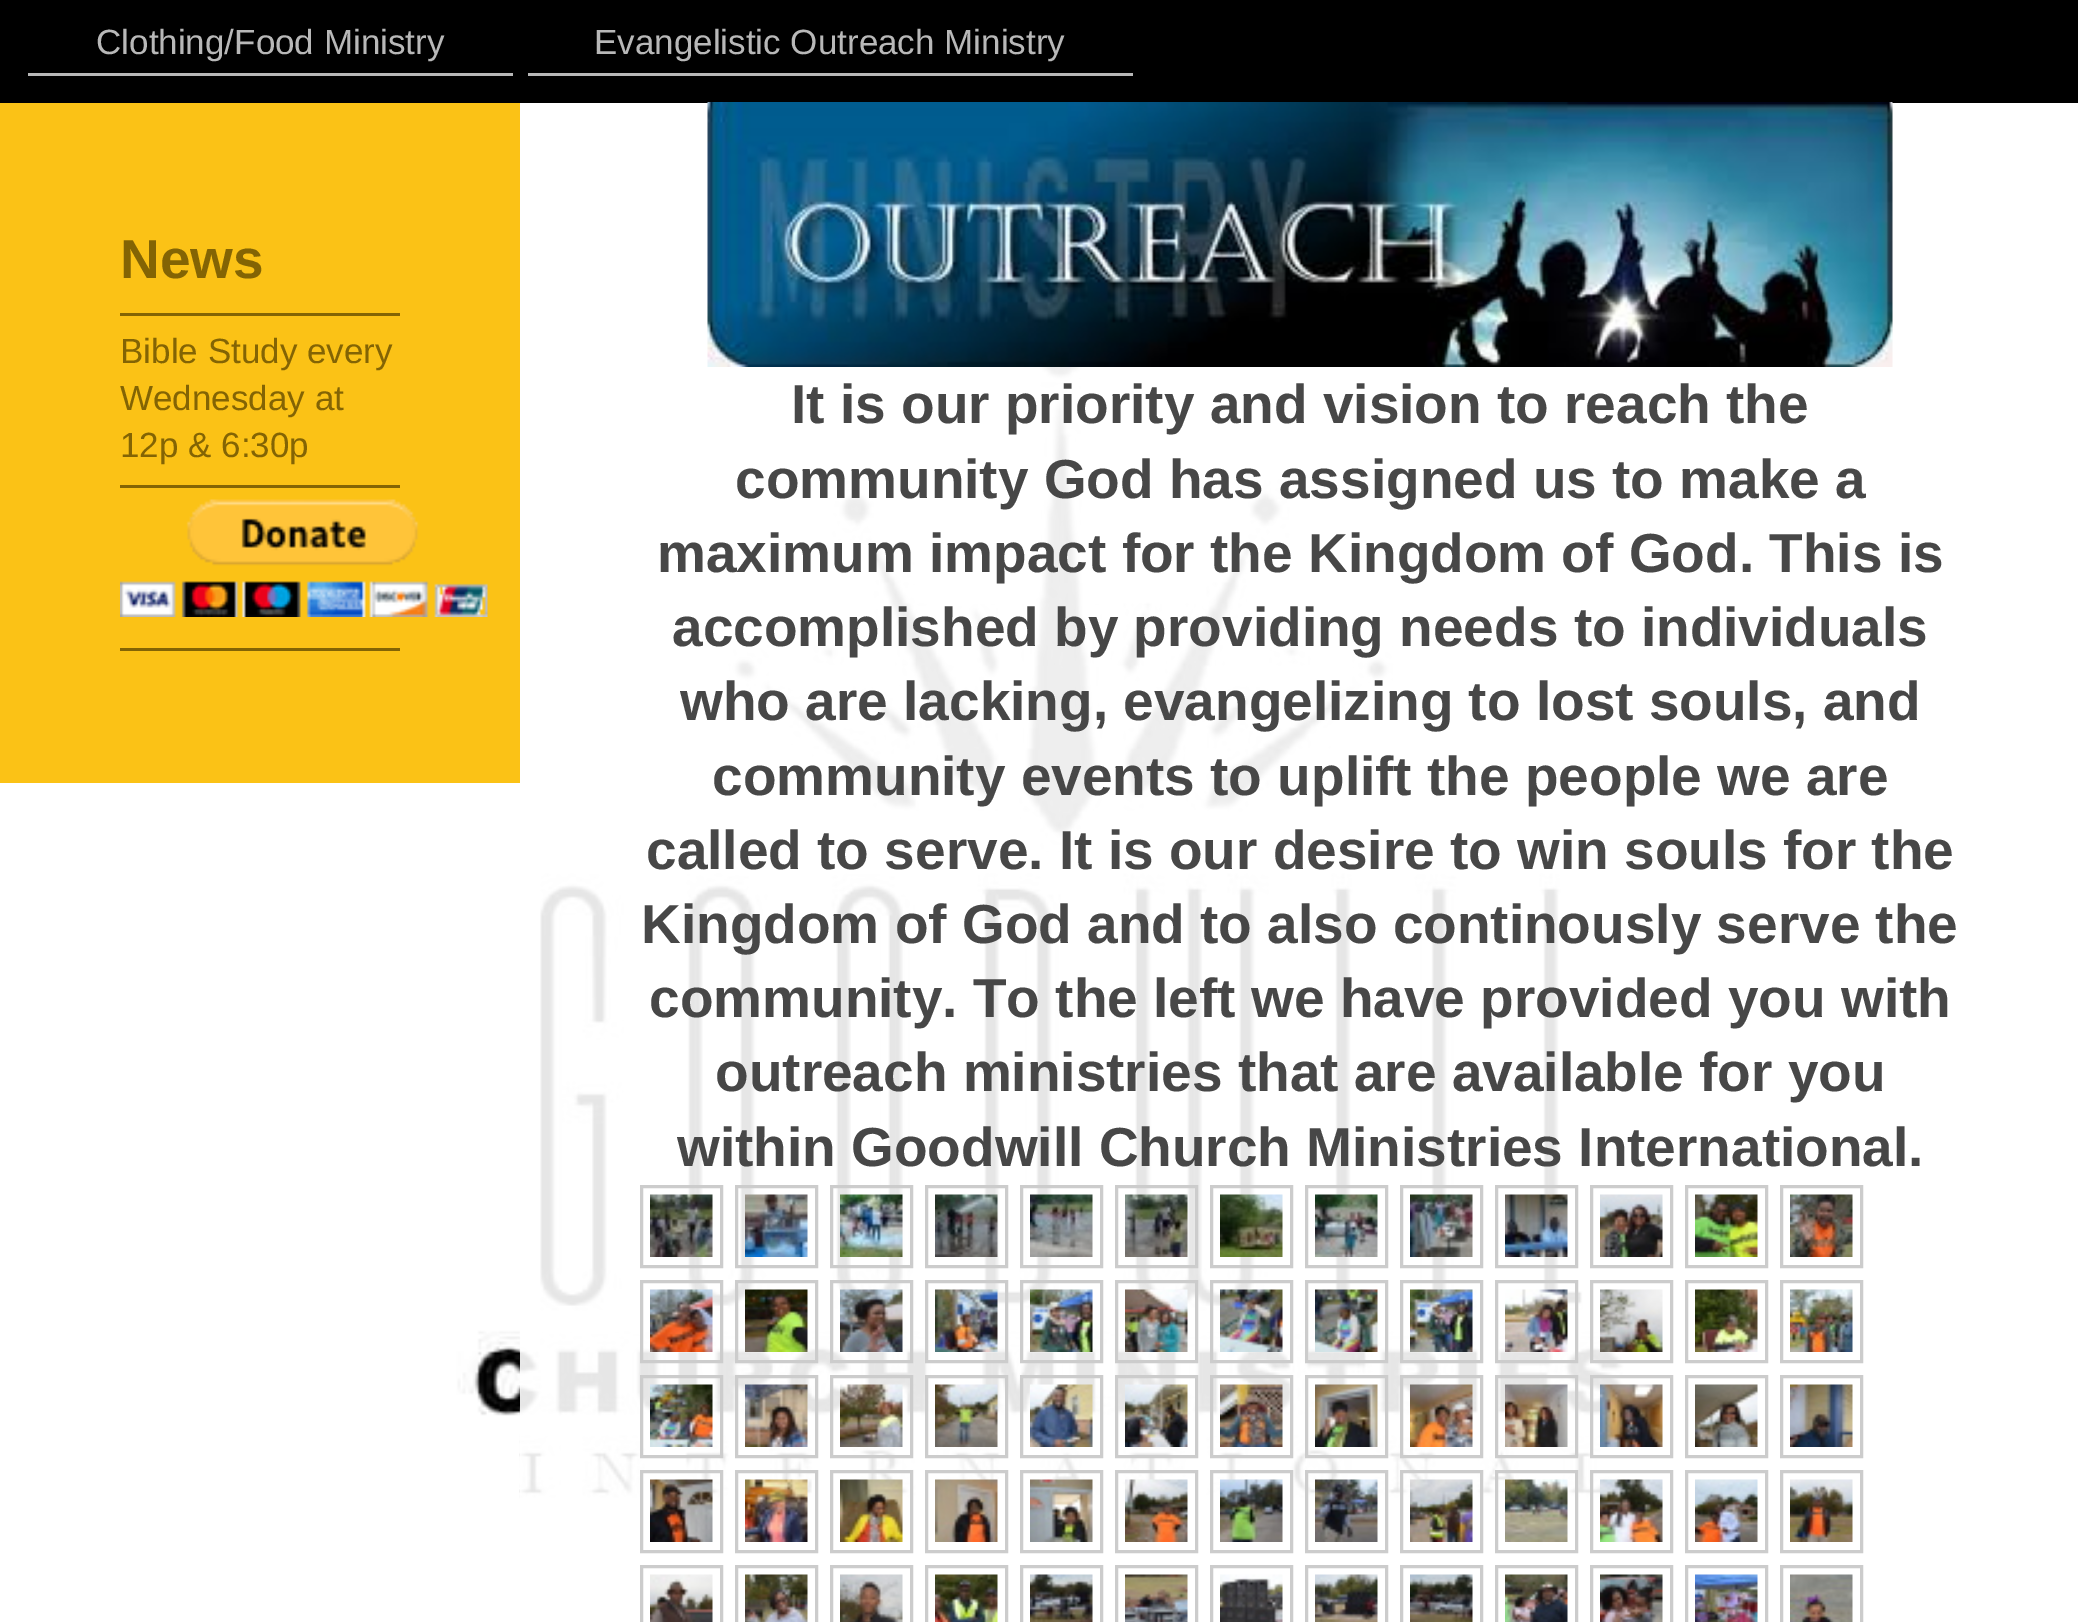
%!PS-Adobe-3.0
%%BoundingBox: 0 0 2078 1622
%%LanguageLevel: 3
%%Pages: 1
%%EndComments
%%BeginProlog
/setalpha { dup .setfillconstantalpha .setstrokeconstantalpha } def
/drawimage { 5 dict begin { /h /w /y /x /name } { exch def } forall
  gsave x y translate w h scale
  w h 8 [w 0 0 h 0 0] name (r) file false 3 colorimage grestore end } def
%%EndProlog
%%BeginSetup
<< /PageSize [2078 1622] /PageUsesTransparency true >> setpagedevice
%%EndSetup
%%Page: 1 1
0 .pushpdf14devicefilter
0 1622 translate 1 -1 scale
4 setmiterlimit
1 setgray
0 0 2078 1622 rectfill
(images/1.raw) 0 103 2078 1519 drawimage
0 setgray
0 0 2078 103 rectfill
0.722 setgray
28 73 485 3 rectfill
528 73 605 3 rectfill
0.984 0.761 0.086 setrgbcolor
0 103 520 680 rectfill
0.514 0.392 0.016 setrgbcolor
120 313 280 3 rectfill
120 485 280 3 rectfill
(images/2.raw) 120 499 368 118 drawimage
120 648 280 3 rectfill
0.9 setalpha
1 setgray
520 312 1104 1187 rectfill
1 setalpha
(images/3.raw) 707 102 1186 265 drawimage
0.8 setgray
3 setlinewidth
641.5 1186.5 80 80 rectstroke
(images/4.raw) 650 1194 63 63 drawimage
736.5 1186.5 80 80 rectstroke
(images/5.raw) 745 1194 63 63 drawimage
831.5 1186.5 80 80 rectstroke
(images/6.raw) 840 1194 63 63 drawimage
926.5 1186.5 80 80 rectstroke
(images/7.raw) 935 1194 63 63 drawimage
1021.5 1186.5 80 80 rectstroke
(images/8.raw) 1030 1194 63 63 drawimage
1116.5 1186.5 80 80 rectstroke
(images/9.raw) 1125 1194 63 63 drawimage
1211.5 1186.5 80 80 rectstroke
(images/10.raw) 1220 1194 63 63 drawimage
1306.5 1186.5 80 80 rectstroke
(images/11.raw) 1315 1194 63 63 drawimage
1401.5 1186.5 80 80 rectstroke
(images/12.raw) 1410 1194 63 63 drawimage
1496.5 1186.5 80 80 rectstroke
(images/13.raw) 1505 1194 63 63 drawimage
1591.5 1186.5 80 80 rectstroke
(images/14.raw) 1600 1194 63 63 drawimage
1686.5 1186.5 80 80 rectstroke
(images/15.raw) 1695 1194 63 63 drawimage
1781.5 1186.5 80 80 rectstroke
(images/16.raw) 1790 1194 63 63 drawimage
641.5 1281.5 80 80 rectstroke
(images/17.raw) 650 1289 63 63 drawimage
736.5 1281.5 80 80 rectstroke
(images/18.raw) 745 1289 63 63 drawimage
831.5 1281.5 80 80 rectstroke
(images/19.raw) 840 1289 63 63 drawimage
926.5 1281.5 80 80 rectstroke
(images/20.raw) 935 1289 63 63 drawimage
1021.5 1281.5 80 80 rectstroke
(images/21.raw) 1030 1289 63 63 drawimage
1116.5 1281.5 80 80 rectstroke
(images/22.raw) 1125 1289 63 63 drawimage
1211.5 1281.5 80 80 rectstroke
(images/23.raw) 1220 1289 63 63 drawimage
1306.5 1281.5 80 80 rectstroke
(images/24.raw) 1315 1289 63 63 drawimage
1401.5 1281.5 80 80 rectstroke
(images/25.raw) 1410 1289 63 63 drawimage
1496.5 1281.5 80 80 rectstroke
(images/26.raw) 1505 1289 63 63 drawimage
1591.5 1281.5 80 80 rectstroke
(images/27.raw) 1600 1289 63 63 drawimage
1686.5 1281.5 80 80 rectstroke
(images/28.raw) 1695 1289 63 63 drawimage
1781.5 1281.5 80 80 rectstroke
(images/29.raw) 1790 1289 63 63 drawimage
641.5 1376.5 80 80 rectstroke
(images/30.raw) 650 1384 63 63 drawimage
736.5 1376.5 80 80 rectstroke
(images/31.raw) 745 1384 63 63 drawimage
831.5 1376.5 80 80 rectstroke
(images/32.raw) 840 1384 63 63 drawimage
926.5 1376.5 80 80 rectstroke
(images/33.raw) 935 1384 63 63 drawimage
1021.5 1376.5 80 80 rectstroke
(images/34.raw) 1030 1384 63 63 drawimage
1116.5 1376.5 80 80 rectstroke
(images/35.raw) 1125 1384 63 63 drawimage
1211.5 1376.5 80 80 rectstroke
(images/36.raw) 1220 1384 63 63 drawimage
1306.5 1376.5 80 80 rectstroke
(images/37.raw) 1315 1384 63 63 drawimage
1401.5 1376.5 80 80 rectstroke
(images/38.raw) 1410 1384 63 63 drawimage
1496.5 1376.5 80 80 rectstroke
(images/39.raw) 1505 1384 63 63 drawimage
1591.5 1376.5 80 80 rectstroke
(images/40.raw) 1600 1384 63 63 drawimage
1686.5 1376.5 80 80 rectstroke
(images/41.raw) 1695 1384 63 63 drawimage
1781.5 1376.5 80 80 rectstroke
(images/42.raw) 1790 1384 63 63 drawimage
641.5 1471.5 80 80 rectstroke
(images/43.raw) 650 1479 63 63 drawimage
736.5 1471.5 80 80 rectstroke
(images/44.raw) 745 1479 63 63 drawimage
831.5 1471.5 80 80 rectstroke
(images/45.raw) 840 1479 63 63 drawimage
926.5 1471.5 80 80 rectstroke
(images/46.raw) 935 1479 63 63 drawimage
1021.5 1471.5 80 80 rectstroke
(images/47.raw) 1030 1479 63 63 drawimage
1116.5 1471.5 80 80 rectstroke
(images/48.raw) 1125 1479 63 63 drawimage
1211.5 1471.5 80 80 rectstroke
(images/49.raw) 1220 1479 63 63 drawimage
1306.5 1471.5 80 80 rectstroke
(images/50.raw) 1315 1479 63 63 drawimage
1401.5 1471.5 80 80 rectstroke
(images/51.raw) 1410 1479 63 63 drawimage
1496.5 1471.5 80 80 rectstroke
(images/52.raw) 1505 1479 63 63 drawimage
1591.5 1471.5 80 80 rectstroke
(images/53.raw) 1600 1479 63 63 drawimage
1686.5 1471.5 80 80 rectstroke
(images/54.raw) 1695 1479 63 63 drawimage
1781.5 1471.5 80 80 rectstroke
(images/55.raw) 1790 1479 63 63 drawimage
641.5 1566.5 80 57 rectstroke
(images/56.raw) 650 1574 63 48 drawimage
736.5 1566.5 80 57 rectstroke
(images/57.raw) 745 1574 63 48 drawimage
831.5 1566.5 80 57 rectstroke
(images/58.raw) 840 1574 63 48 drawimage
926.5 1566.5 80 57 rectstroke
(images/59.raw) 935 1574 63 48 drawimage
1021.5 1566.5 80 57 rectstroke
(images/60.raw) 1030 1574 63 48 drawimage
1116.5 1566.5 80 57 rectstroke
(images/61.raw) 1125 1574 63 48 drawimage
1211.5 1566.5 80 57 rectstroke
(images/62.raw) 1220 1574 63 48 drawimage
1306.5 1566.5 80 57 rectstroke
(images/63.raw) 1315 1574 63 48 drawimage
1401.5 1566.5 80 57 rectstroke
(images/64.raw) 1410 1574 63 48 drawimage
1496.5 1566.5 80 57 rectstroke
(images/65.raw) 1505 1574 63 48 drawimage
1591.5 1566.5 80 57 rectstroke
(images/66.raw) 1600 1574 63 48 drawimage
1686.5 1566.5 80 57 rectstroke
(images/67.raw) 1695 1574 63 48 drawimage
1781.5 1566.5 80 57 rectstroke
(images/68.raw) 1790 1574 63 48 drawimage
/LiberationSans-Regular [35 0 0 -35 0 0] selectfont
0.722 setgray
96 54 moveto (Clothing/Food Ministry) show
594 54 moveto (Evangelistic Outreach Ministry) show
/LiberationSans-Bold [55 0 0 -55 0 0] selectfont
0.514 0.392 0.016 setrgbcolor
120 278 moveto (News) show
/LiberationSans-Regular [35 0 0 -35 0 0] selectfont
120 363 moveto (Bible Study every) show
120 410 moveto (Wednesday at) show
120 457 moveto (12p & 6:30p) show
/LiberationSans-Bold [55 0 0 -55 0 0] selectfont
0.278 setgray
791 423 moveto (It is our priority and vision to reach the) show
735 498 moveto (community God has assigned us to make a) show
657 572 moveto (maximum impact for the Kingdom of God. This is) show
672 646 moveto (accomplished by providing needs to individuals) show
680 720 moveto (who are lacking, evangelizing to lost souls, and) show
712 795 moveto (community events to uplift the people we are) show
646 869 moveto (called to serve. It is our desire to win souls for the) show
641 943 moveto (Kingdom of God and to also continously serve the) show
649 1017 moveto (community. To the left we have provided you with) show
715 1091 moveto (outreach ministries that are available for you) show
677 1166 moveto (within Goodwill Church Ministries International.) show
.poppdf14devicefilter showpage
%%EOF
